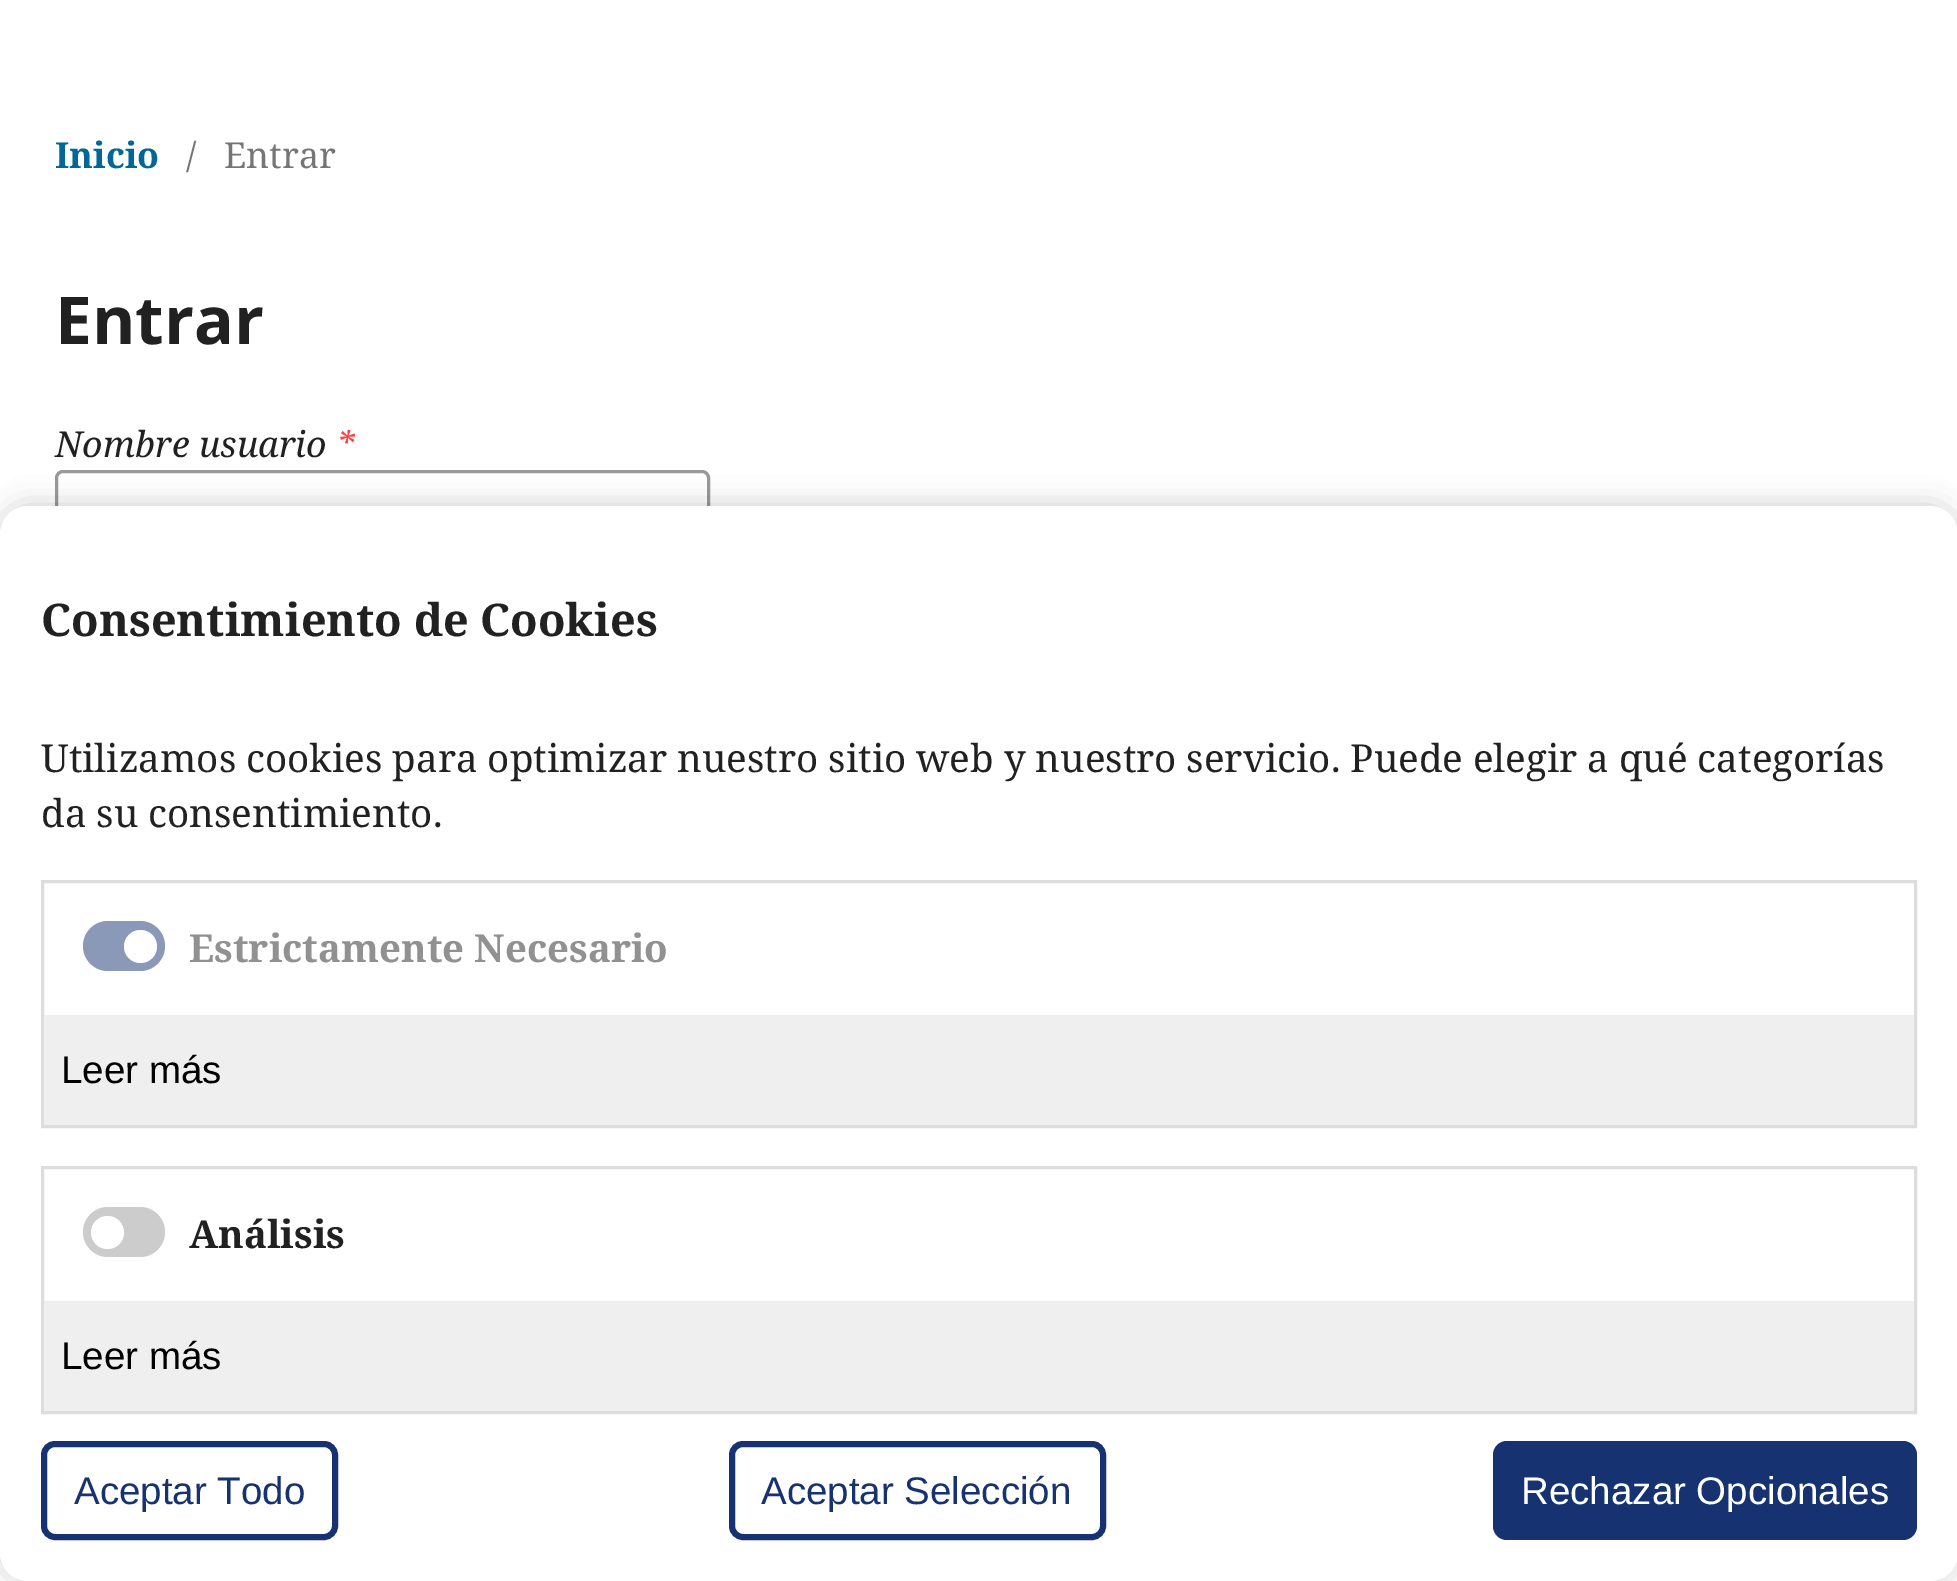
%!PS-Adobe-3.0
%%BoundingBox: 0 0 1957 1581
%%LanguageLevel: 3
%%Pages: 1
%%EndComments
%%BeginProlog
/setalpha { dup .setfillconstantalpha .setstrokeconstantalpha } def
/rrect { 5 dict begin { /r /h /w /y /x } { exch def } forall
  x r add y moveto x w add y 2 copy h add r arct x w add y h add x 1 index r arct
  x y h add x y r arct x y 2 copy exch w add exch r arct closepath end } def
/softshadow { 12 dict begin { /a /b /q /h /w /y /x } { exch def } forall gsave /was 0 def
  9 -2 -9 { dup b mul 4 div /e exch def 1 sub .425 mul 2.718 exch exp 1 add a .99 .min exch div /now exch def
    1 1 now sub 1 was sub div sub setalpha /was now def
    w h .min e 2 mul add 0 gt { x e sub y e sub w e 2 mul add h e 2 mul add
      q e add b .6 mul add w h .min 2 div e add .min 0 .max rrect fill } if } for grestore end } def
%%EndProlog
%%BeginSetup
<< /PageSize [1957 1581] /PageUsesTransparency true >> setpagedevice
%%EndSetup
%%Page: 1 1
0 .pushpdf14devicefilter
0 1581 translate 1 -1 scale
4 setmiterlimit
1 setgray
0 0 1957 1581 rectfill
0.6 setgray
3 setlinewidth
56.5 471.5 652 74 6.5 rrect stroke
0 setgray
0 506 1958 1075 28 14 0.2 softshadow
1 setgray
0 506 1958 1075 28 rrect fill
0.867 setgray
42.5 881.5 1873 245 rectstroke
0.545 0.6 0.722 setrgbcolor
83 921 82 50 25 rrect fill
1 setgray
newpath 140.5 946.5 16.5 0 360 arc closepath fill
0.937 setgray
44 1015 1870 110 rectfill
0.867 setgray
42.5 1167.5 1873 245 rectstroke
0.8 setgray
83 1207 82 50 25 rrect fill
1 setgray
newpath 107.5 1232.5 16.5 0 360 arc closepath fill
0.937 setgray
44 1301 1870 110 rectfill
0.086 0.196 0.443 setrgbcolor
6 setlinewidth
44 1444 291 93 11 rrect stroke
732 1444 371 93 11 rrect stroke
1493 1441 424 99 14 rrect fill
/NotoSerif-Bold [35.75 0 0 -35.75 0 0] selectfont
0 0.404 0.596 setrgbcolor
55 168 moveto (Inicio) show
/NotoSerif-Regular [35.75 0 0 -35.75 0 0] selectfont
0.459 setgray
186 168 moveto (/) show
224 168 moveto (Entrar) show
/NotoSans-Bold [66 0 0 -66 0 0] selectfont
0.129 setgray
55 344 moveto (Entrar) show
/NotoSerif-Italic [35.75 0 0 -35.75 0 0] selectfont
55 457 moveto (Nombre usuario) show
1 0.251 0.251 setrgbcolor
336 457 moveto (*) show
/NotoSerif-Bold [45 0 0 -45 0 0] selectfont
0.129 setgray
41 636 moveto (Consentimiento de Cookies) show
/NotoSerif-Regular [38.5 0 0 -38.5 0 0] selectfont
41 772 moveto (Utilizamos cookies para optimizar nuestro sitio web y nuestro servicio. Puede elegir a qué categorías) show
41 827 moveto (da su consentimiento.) show
/NotoSerif-Bold [38.5 0 0 -38.5 0 0] selectfont
0.569 setgray
189 962 moveto (Estrictamente Necesario) show
/LiberationSans-Regular [38.5 0 0 -38.5 0 0] selectfont
0 setgray
61 1083 moveto (Leer más) show
/NotoSerif-Bold [38.5 0 0 -38.5 0 0] selectfont
0.129 setgray
189 1248 moveto (Análisis) show
/LiberationSans-Regular [38.5 0 0 -38.5 0 0] selectfont
0 setgray
61 1369 moveto (Leer más) show
0.086 0.196 0.443 setrgbcolor
74 1504 moveto (Aceptar Todo) show
761 1504 moveto (Aceptar Selección) show
1 setgray
1521 1504 moveto (Rechazar Opcionales) show
.poppdf14devicefilter showpage
%%EOF
